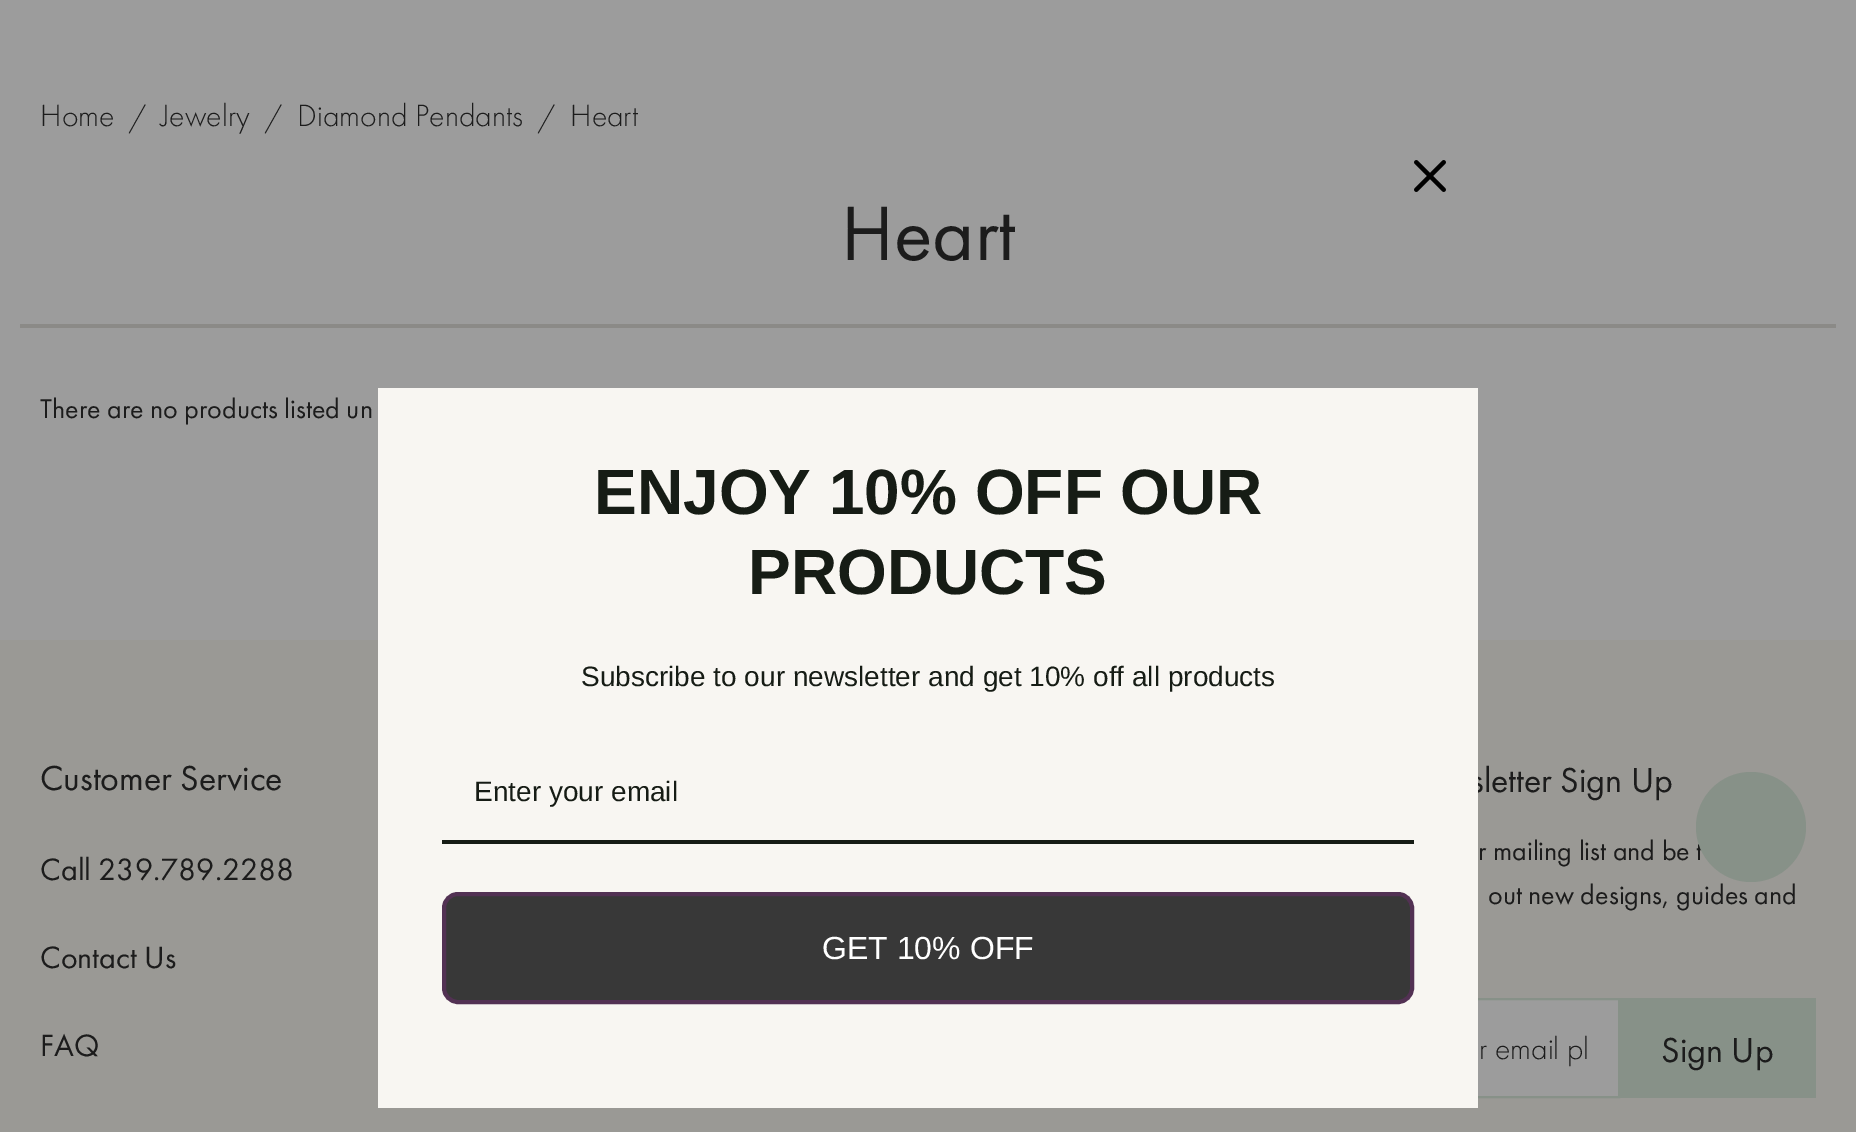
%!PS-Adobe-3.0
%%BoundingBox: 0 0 1856 1132
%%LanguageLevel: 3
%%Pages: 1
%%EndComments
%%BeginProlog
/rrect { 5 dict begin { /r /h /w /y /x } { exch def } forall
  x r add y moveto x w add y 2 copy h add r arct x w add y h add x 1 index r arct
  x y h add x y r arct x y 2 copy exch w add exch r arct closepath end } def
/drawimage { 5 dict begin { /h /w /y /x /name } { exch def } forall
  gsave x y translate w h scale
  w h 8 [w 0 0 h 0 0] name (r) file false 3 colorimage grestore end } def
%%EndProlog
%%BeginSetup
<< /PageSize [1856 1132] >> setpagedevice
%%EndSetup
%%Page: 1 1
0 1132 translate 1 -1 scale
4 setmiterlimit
0.612 setgray
0 0 1856 1132 rectfill
0.545 0.541 0.529 setrgbcolor
20 324 1816 4 rectfill
(images/1.raw) 1414 160 32 32 drawimage
0.604 0.6 0.584 setrgbcolor
0 640 1856 492 rectfill
0.612 setgray
1478 1000 140 96 rectfill
0.529 0.569 0.533 setrgbcolor
2 setlinewidth
1403 999 216 98 rectstroke
1620 998 196 100 rectfill
/FuturaPT-Light [32 0 0 -32 0 0] selectfont
0.11 setgray
40 126 moveto (Home) show
128 128 moveto (/) show
161 126 moveto (Jewelry) show
264 128 moveto (/) show
297 126 moveto (Diamond Pendants) show
537 128 moveto (/) show
570 126 moveto (Heart) show
/FuturaPT-Regular [80 0 0 -80 0 0] selectfont
841 260 moveto (Heart) show
/FuturaPT-Regular [28 0 0 -28 0 0] selectfont
40 418 moveto (There are no products listed un) show
/FuturaPT-Regular [36 0 0 -36 0 0] selectfont
40 790 moveto (Customer Service) show
/FuturaPT-Regular [32 0 0 -32 0 0] selectfont
40 880 moveto (Call 239.789.2288) show
40 968 moveto (Contact Us) show
40 1056 moveto (FAQ) show
/FuturaPT-Regular [36 0 0 -36 0 0] selectfont
1471 792 moveto (sletter Sign Up) show
0.973 0.965 0.949 setrgbcolor
378 388 1100 720 rectfill
0.22 setgray
444 894 968 108 14 rrect gsave fill grestore
0.322 0.192 0.325 setrgbcolor
4 setlinewidth
stroke
/LiberationSans-Regular [32 0 0 -32 0 0] selectfont
1 setgray
822 959 moveto (GET 10% OFF) show
/LiberationSans-Regular [28 0 0 -28 0 0] selectfont
0.086 0.11 0.082 setrgbcolor
474 801 moveto (Enter your email) show
442 840 972 4 rectfill
581 686 moveto (Subscribe to our newsletter and get 10% off all products) show
/LiberationSans-Bold [64 0 0 -64 0 0] selectfont
748 594 moveto (PRODUCTS) show
594 514 moveto (ENJOY 10% OFF OUR) show
/FuturaPT-Regular [28 0 0 -28 0 0] selectfont
0.11 setgray
1478 860 moveto (r mailing list and be t) show
1488 904 moveto (out new designs, guides and) show
/FuturaPT-Light [32 0 0 -32 0 0] selectfont
1479 1059 moveto (r email pl) show
/FuturaPT-Regular [36 0 0 -36 0 0] selectfont
1661 1062 moveto (Sign Up) show
0.529 0.569 0.533 setrgbcolor
newpath 1751 827 55 0 360 arc closepath fill
showpage
%%EOF
